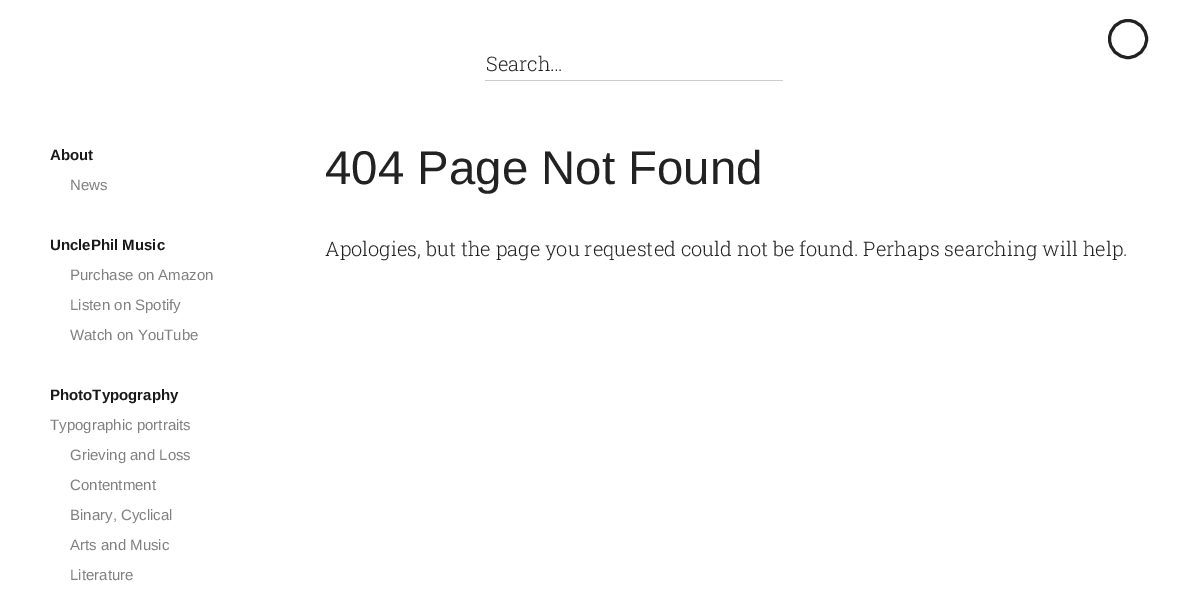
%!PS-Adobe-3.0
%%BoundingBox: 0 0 1197 598
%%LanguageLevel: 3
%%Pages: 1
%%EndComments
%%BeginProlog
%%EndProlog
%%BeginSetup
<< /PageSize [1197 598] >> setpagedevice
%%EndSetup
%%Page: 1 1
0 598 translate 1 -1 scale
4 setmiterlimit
1 setgray
0 0 1197 598 rectfill
0.133 setgray
3 setlinewidth
newpath 1128 39 18.5 0 360 arc closepath stroke
0.8 setgray
485 80 298 1 rectfill
/RobotoSlab-Light [20 0 0 -20 0 0] selectfont
0.133 setgray
486 71 moveto (Search…) show
/LiberationSans-Bold [15 0 0 -15 0 0] selectfont
0.098 setgray
50 160 moveto (About) show
/LiberationSans-Regular [15 0 0 -15 0 0] selectfont
0.502 setgray
70 190 moveto (News) show
/LiberationSans-Bold [15 0 0 -15 0 0] selectfont
0.098 setgray
50 250 moveto (UnclePhil Music) show
/LiberationSans-Regular [15 0 0 -15 0 0] selectfont
0.502 setgray
70 280 moveto (Purchase on Amazon) show
70 310 moveto (Listen on Spotify) show
70 340 moveto (Watch on YouTube) show
/LiberationSans-Bold [15 0 0 -15 0 0] selectfont
0.098 setgray
50 400 moveto (PhotoTypography) show
/LiberationSans-Regular [15 0 0 -15 0 0] selectfont
0.502 setgray
50 430 moveto (Typographic portraits) show
70 460 moveto (Grieving and Loss) show
70 490 moveto (Contentment) show
70 520 moveto (Binary, Cyclical) show
70 550 moveto (Arts and Music) show
70 580 moveto (Literature) show
/LiberationSans-Regular [47.4 0 0 -47.4 0 0] selectfont
0.133 setgray
325 184 moveto (404 Page Not Found) show
/RobotoSlab-Light [20 0 0 -20 0 0] selectfont
325 256 moveto (Apologies, but the page you requested could not be found. Perhaps searching will help.) show
showpage
%%EOF
